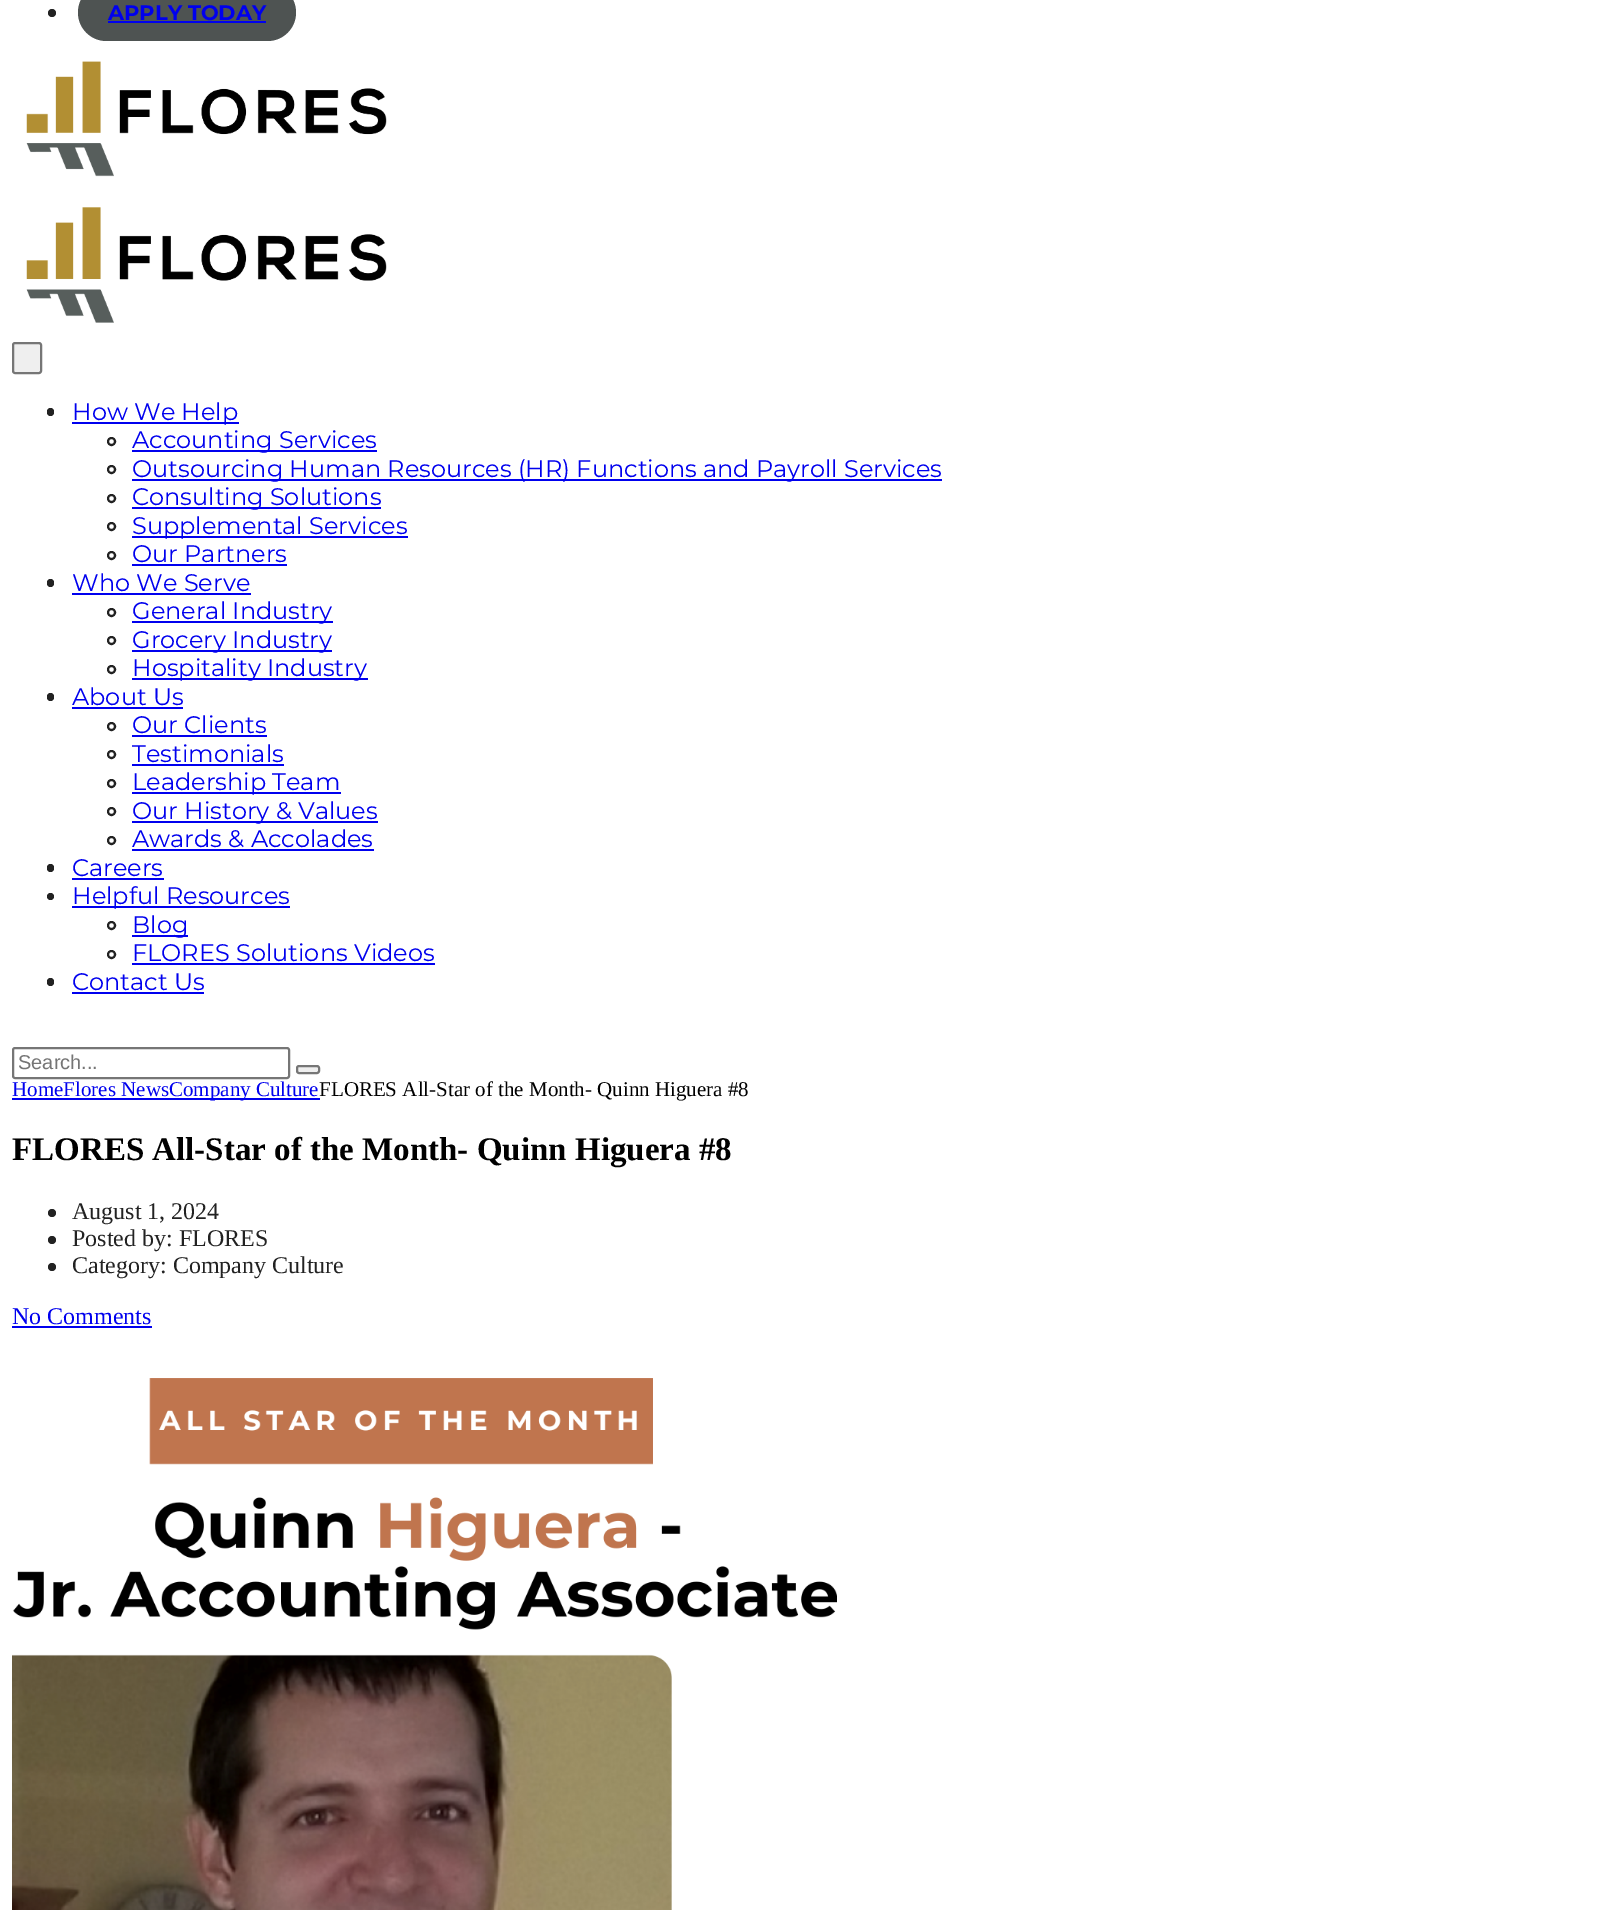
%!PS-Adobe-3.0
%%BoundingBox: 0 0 1610 1910
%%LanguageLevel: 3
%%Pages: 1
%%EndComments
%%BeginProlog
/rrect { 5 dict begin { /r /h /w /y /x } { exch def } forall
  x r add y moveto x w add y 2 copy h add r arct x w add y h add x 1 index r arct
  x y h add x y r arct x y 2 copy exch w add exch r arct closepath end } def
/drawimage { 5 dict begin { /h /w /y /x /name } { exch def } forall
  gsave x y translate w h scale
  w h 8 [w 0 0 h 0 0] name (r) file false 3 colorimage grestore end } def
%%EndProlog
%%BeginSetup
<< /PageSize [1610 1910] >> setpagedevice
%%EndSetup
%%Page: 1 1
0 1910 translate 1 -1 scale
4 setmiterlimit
1 setgray
0 0 1610 1910 rectfill
0.133 setgray
newpath 52 13 4 0 360 arc closepath fill
0.306 0.325 0.322 setrgbcolor
78 -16 218 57 28.5 rrect fill
0 0 0.933 setrgbcolor
108 21 158 2 rectfill
(images/1.raw) 26 61 361 116 drawimage
(images/2.raw) 26 207 361 116 drawimage
0.937 setgray
13 343 28 30 2 rrect gsave fill grestore
0.463 setgray
2 setlinewidth
stroke
0.133 setgray
47 408 7 8 3.5 rrect fill
0 0 0.933 setrgbcolor
72 422 167 2 rectfill
0.133 setgray
newpath 111.5 441.5 3.5 0 360 arc closepath stroke
0 0 0.933 setrgbcolor
132 450 245 2 rectfill
0.133 setgray
newpath 111.5 469.5 3.5 0 360 arc closepath stroke
0 0 0.933 setrgbcolor
132 479 810 2 rectfill
0.133 setgray
newpath 111.5 498.5 3.5 0 360 arc closepath stroke
0 0 0.933 setrgbcolor
132 507 249 2 rectfill
0.133 setgray
newpath 111.5 526.5 3.5 0 360 arc closepath stroke
0 0 0.933 setrgbcolor
132 536 276 2 rectfill
0.133 setgray
newpath 111.5 555.5 3.5 0 360 arc closepath stroke
0 0 0.933 setrgbcolor
132 564 155 2 rectfill
0.133 setgray
47 579 7 8 3.5 rrect fill
0 0 0.933 setrgbcolor
72 593 179 2 rectfill
0.133 setgray
newpath 111.5 612.5 3.5 0 360 arc closepath stroke
0 0 0.933 setrgbcolor
132 621 201 2 rectfill
0.133 setgray
newpath 111.5 640.5 3.5 0 360 arc closepath stroke
0 0 0.933 setrgbcolor
132 650 200 2 rectfill
0.133 setgray
newpath 111.5 669.5 3.5 0 360 arc closepath stroke
0 0 0.933 setrgbcolor
132 678 236 2 rectfill
0.133 setgray
47 693 7 8 3.5 rrect fill
0 0 0.933 setrgbcolor
72 707 111 2 rectfill
0.133 setgray
newpath 111.5 726.5 3.5 0 360 arc closepath stroke
0 0 0.933 setrgbcolor
132 735 135 2 rectfill
0.133 setgray
newpath 111.5 754.5 3.5 0 360 arc closepath stroke
0 0 0.933 setrgbcolor
132 764 152 2 rectfill
0.133 setgray
newpath 111.5 783.5 3.5 0 360 arc closepath stroke
0 0 0.933 setrgbcolor
132 792 209 2 rectfill
0.133 setgray
newpath 111.5 811.5 3.5 0 360 arc closepath stroke
0 0 0.933 setrgbcolor
132 821 246 2 rectfill
0.133 setgray
newpath 111.5 840.5 3.5 0 360 arc closepath stroke
0 0 0.933 setrgbcolor
132 849 242 2 rectfill
0.133 setgray
47 864 7 8 3.5 rrect fill
0 0 0.933 setrgbcolor
72 878 92 2 rectfill
0.133 setgray
newpath 50.5 896.5 3.5 0 360 arc closepath fill
0 0 0.933 setrgbcolor
72 906 218 2 rectfill
0.133 setgray
newpath 111.5 925.5 3.5 0 360 arc closepath stroke
0 0 0.933 setrgbcolor
132 935 56 2 rectfill
0.133 setgray
newpath 111.5 954.5 3.5 0 360 arc closepath stroke
0 0 0.933 setrgbcolor
132 963 303 2 rectfill
0.133 setgray
47 978 7 8 3.5 rrect fill
0 0 0.933 setrgbcolor
72 992 132 2 rectfill
0.463 setgray
13 1048 276 30 2 rrect stroke
0.937 setgray
297 1066 22 7 2 rrect gsave fill grestore
0.463 setgray
stroke
0 0 0.933 setrgbcolor
12 1098 308 2 rectfill
0.133 setgray
newpath 52 1213 4 0 360 arc closepath fill
newpath 52 1240 4 0 360 arc closepath fill
newpath 52 1267 4 0 360 arc closepath fill
0 0 0.933 setrgbcolor
12 1326 140 2 rectfill
(images/3.raw) 12 1378 825 532 drawimage
/Montserrat-Bold [21 0 0 -21 0 0] selectfont
108 20 moveto (APPLY TODAY) show
/Montserrat-Regular [24 0 0 -24 0 0] selectfont
72 420 moveto (How We Help) show
132 448 moveto (Accounting Services) show
132 477 moveto (Outsourcing Human Resources \(HR\) Functions and Payroll Services) show
132 505 moveto (Consulting Solutions) show
132 534 moveto (Supplemental Services) show
132 562 moveto (Our Partners) show
72 591 moveto (Who We Serve) show
132 619 moveto (General Industry) show
132 648 moveto (Grocery Industry) show
132 676 moveto (Hospitality Industry) show
72 705 moveto (About Us) show
132 733 moveto (Our Clients) show
132 762 moveto (Testimonials) show
132 790 moveto (Leadership Team) show
132 819 moveto (Our History & Values) show
132 847 moveto (Awards & Accolades) show
72 876 moveto (Careers) show
72 904 moveto (Helpful Resources) show
132 933 moveto (Blog) show
132 961 moveto (FLORES Solutions Videos) show
72 990 moveto (Contact Us) show
/LiberationSans-Regular [20 0 0 -20 0 0] selectfont
0.459 setgray
18 1069 moveto (Search...) show
/LiberationSerif-Regular [21 0 0 -21 0 0] selectfont
0 0 0.933 setrgbcolor
12 1096 moveto (HomeFlores NewsCompany Culture) show
0 setgray
319 1096 moveto (FLORES All-Star of the Month- Quinn Higuera #8) show
/LiberationSerif-Bold [33 0 0 -33 0 0] selectfont
12 1160 moveto (FLORES All-Star of the Month- Quinn Higuera #8) show
/LiberationSerif-Regular [24 0 0 -24 0 0] selectfont
0.133 setgray
72 1219 moveto (August 1, 2024) show
72 1246 moveto (Posted by: FLORES) show
72 1273 moveto (Category: Company Culture) show
0 0 0.933 setrgbcolor
12 1324 moveto (No Comments) show
showpage
%%EOF
